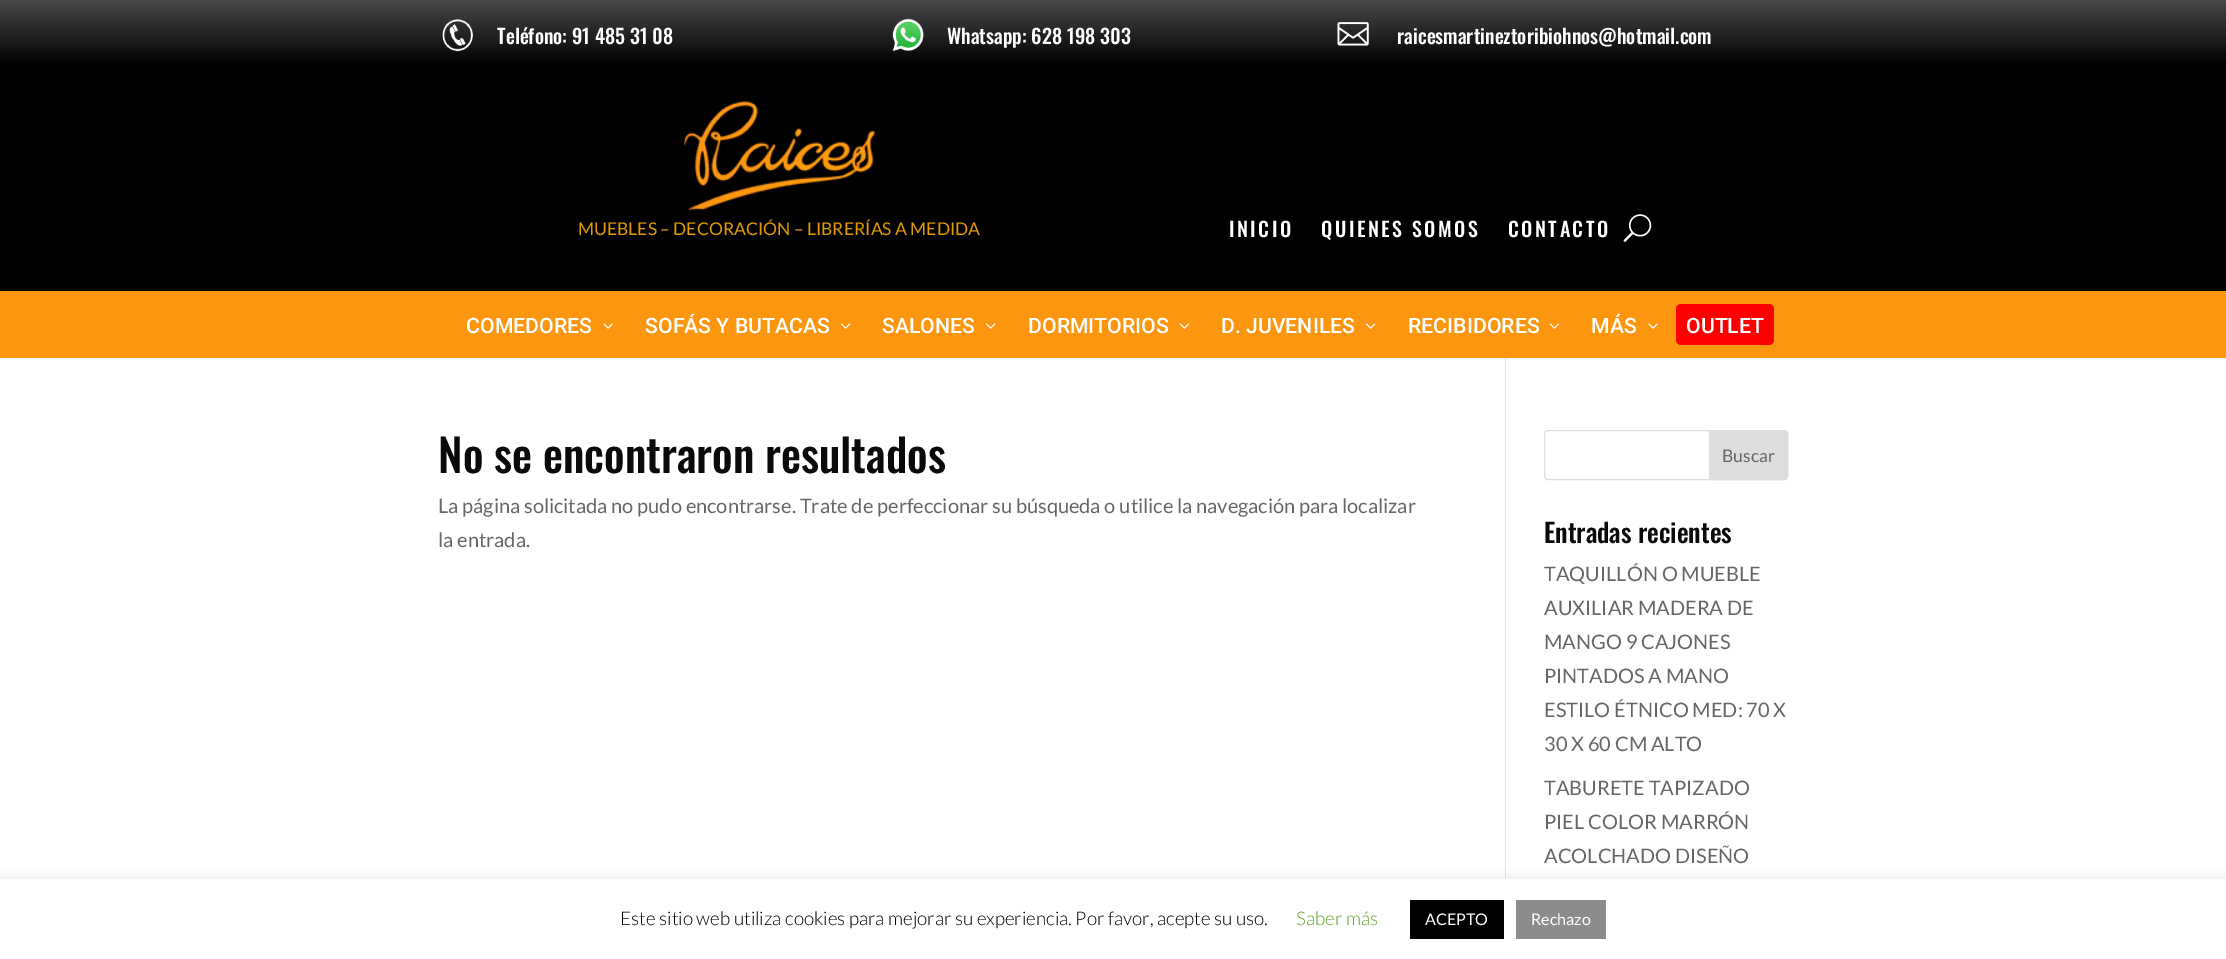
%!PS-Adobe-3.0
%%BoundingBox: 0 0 2226 959
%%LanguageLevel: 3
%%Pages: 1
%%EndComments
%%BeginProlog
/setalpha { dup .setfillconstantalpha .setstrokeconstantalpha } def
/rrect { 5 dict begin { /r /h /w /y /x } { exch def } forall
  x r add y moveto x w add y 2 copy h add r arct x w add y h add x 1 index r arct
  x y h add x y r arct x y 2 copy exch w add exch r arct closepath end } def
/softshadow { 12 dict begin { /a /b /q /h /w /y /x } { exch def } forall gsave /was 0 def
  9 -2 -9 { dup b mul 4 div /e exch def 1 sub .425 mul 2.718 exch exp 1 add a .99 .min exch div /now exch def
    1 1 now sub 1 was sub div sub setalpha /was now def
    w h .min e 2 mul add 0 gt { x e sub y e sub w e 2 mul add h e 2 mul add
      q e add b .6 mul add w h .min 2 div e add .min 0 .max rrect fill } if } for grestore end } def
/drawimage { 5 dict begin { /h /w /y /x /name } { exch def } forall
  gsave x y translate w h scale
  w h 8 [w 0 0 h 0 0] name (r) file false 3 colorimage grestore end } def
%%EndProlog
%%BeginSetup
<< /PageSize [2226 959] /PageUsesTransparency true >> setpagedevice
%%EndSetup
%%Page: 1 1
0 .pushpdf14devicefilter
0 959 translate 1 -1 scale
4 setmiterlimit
1 setgray
0 0 2226 959 rectfill
gsave newpath 0 0 moveto 2226 0 lineto 2226 65 lineto 0 65 lineto closepath clip newpath
<< /ShadingType 2 /ColorSpace /DeviceRGB /Coords [1113 0 1113 65] /Extend [true true] /Function << /FunctionType 2 /Domain [0 1] /C0 [0.286 0.286 0.286] /C1 [0 0 0] /N 1 >> >> shfill grestore
(images/1.raw) 442 19 31 33 drawimage
(images/2.raw) 892 18 32 34 drawimage
(images/3.raw) 1337 22 32 24 drawimage
0 setgray
0 65 2226 226 rectfill
(images/4.raw) 683 101 193 110 drawimage
(images/5.raw) 1623 214 29 28 drawimage
0.988 0.588 0.059 setrgbcolor
0 291 2226 67 rectfill
(images/6.raw) 603 323 10 6 drawimage
(images/7.raw) 841 323 10 6 drawimage
(images/7.raw) 986 323 10 6 drawimage
(images/8.raw) 1179 323 10 6 drawimage
(images/7.raw) 1366 323 10 6 drawimage
(images/8.raw) 1549 323 10 6 drawimage
(images/6.raw) 1648 323 10 6 drawimage
1 0 0 setrgbcolor
1676 304 98 41 5 rrect fill
0.886 setgray
1505 358 1 521 rectfill
0.867 setgray
1544.5 430.5 243 49 3.5 rrect stroke
newpath 1709.5 430.5 moveto 1784 430.5 lineto 1786 430.5 1787.5 432 1787.5 434 curveto 1787.5 476 lineto 1787.5 478 1786 479.5 1784 479.5 curveto 1709.5 479.5 lineto closepath gsave fill grestore
stroke
0.675 0.671 0.671 setrgbcolor
0 878 2226 81 0 6 0.3 softshadow
1 setgray
0 879 2226 80 rectfill
0 setgray
1410 900 94 39 rectfill
0.549 setgray
1516 900 90 39 rectfill
/Oswald-Medium [20 0 0 -20 0 0] selectfont
1 setgray
497 44 moveto (Teléfono: 91 485 31 08) show
947 44 moveto (Whatsapp: 628 198 303) show
1397 44 moveto (raicesmartineztoribiohnos@hotmail.com) show
/Lato-Regular [17.5 0 0 -17.5 0 0] selectfont
0.878 0.6 0 setrgbcolor
578 235 moveto (MUEBLES – DECORACIÓN – LIBRERÍAS A MEDIDA) show
/Oswald-Medium [20 0 0 -20 0 0] selectfont
1 setgray
1229 237 moveto 2.5 0 (INICIO) ashow
1321 237 moveto 2.5 0 (QUIENES SOMOS) ashow
1508 237 moveto 2.5 0 (CONTACTO) ashow
/Roboto-Medium [21.25 0 0 -21.25 0 0] selectfont
466 333 moveto (COMEDORES) show
645 333 moveto (SOFÁS Y BUTACAS) show
882 333 moveto (SALONES) show
1028 333 moveto (DORMITORIOS) show
1221 333 moveto (D. JUVENILES) show
1408 333 moveto (RECIBIDORES) show
1591 333 moveto (MÁS) show
1686 333 moveto (OUTLET) show
/Oswald-Medium [45 0 0 -45 0 0] selectfont
0.039 setgray
438 473 moveto (No se encontraron resultados) show
/Lato-Regular [20 0 0 -20 0 0] selectfont
0.4 setgray
438 513 moveto (La página solicitada no pudo encontrarse. Trate de perfeccionar su búsqueda o utilice la navegación para localizar) show
438 547 moveto (la entrada.) show
/Lato-Regular [17.5 0 0 -17.5 0 0] selectfont
1722 462 moveto (Buscar) show
/Oswald-Medium [26.25 0 0 -26.25 0 0] selectfont
0.039 setgray
1544 543 moveto (Entradas recientes) show
/Lato-Regular [20 0 0 -20 0 0] selectfont
0.4 setgray
1544 581 moveto (TAQUILLÓN O MUEBLE) show
1544 615 moveto (AUXILIAR MADERA DE) show
1544 649 moveto (MANGO 9 CAJONES) show
1544 683 moveto (PINTADOS A MANO) show
1544 717 moveto (ESTILO ÉTNICO MED: 70 X) show
1544 751 moveto (30 X 60 CM ALTO) show
1544 795 moveto (TABURETE TAPIZADO) show
1544 829 moveto (PIEL COLOR MARRÓN) show
1544 863 moveto (ACOLCHADO DISEÑO) show
/Lato-Light [18.75 0 0 -18.75 0 0] selectfont
0 setgray
620 925 moveto (Este sitio web utiliza cookies para mejorar su experiencia. Por favor, acepte su uso.) show
0.384 0.639 0.161 setrgbcolor
1296 925 moveto (Saber más) show
/Lato-Regular [16 0 0 -16 0 0] selectfont
1 setgray
1425 925 moveto (ACEPTO) show
1531 925 moveto (Rechazo) show
.poppdf14devicefilter showpage
%%EOF
